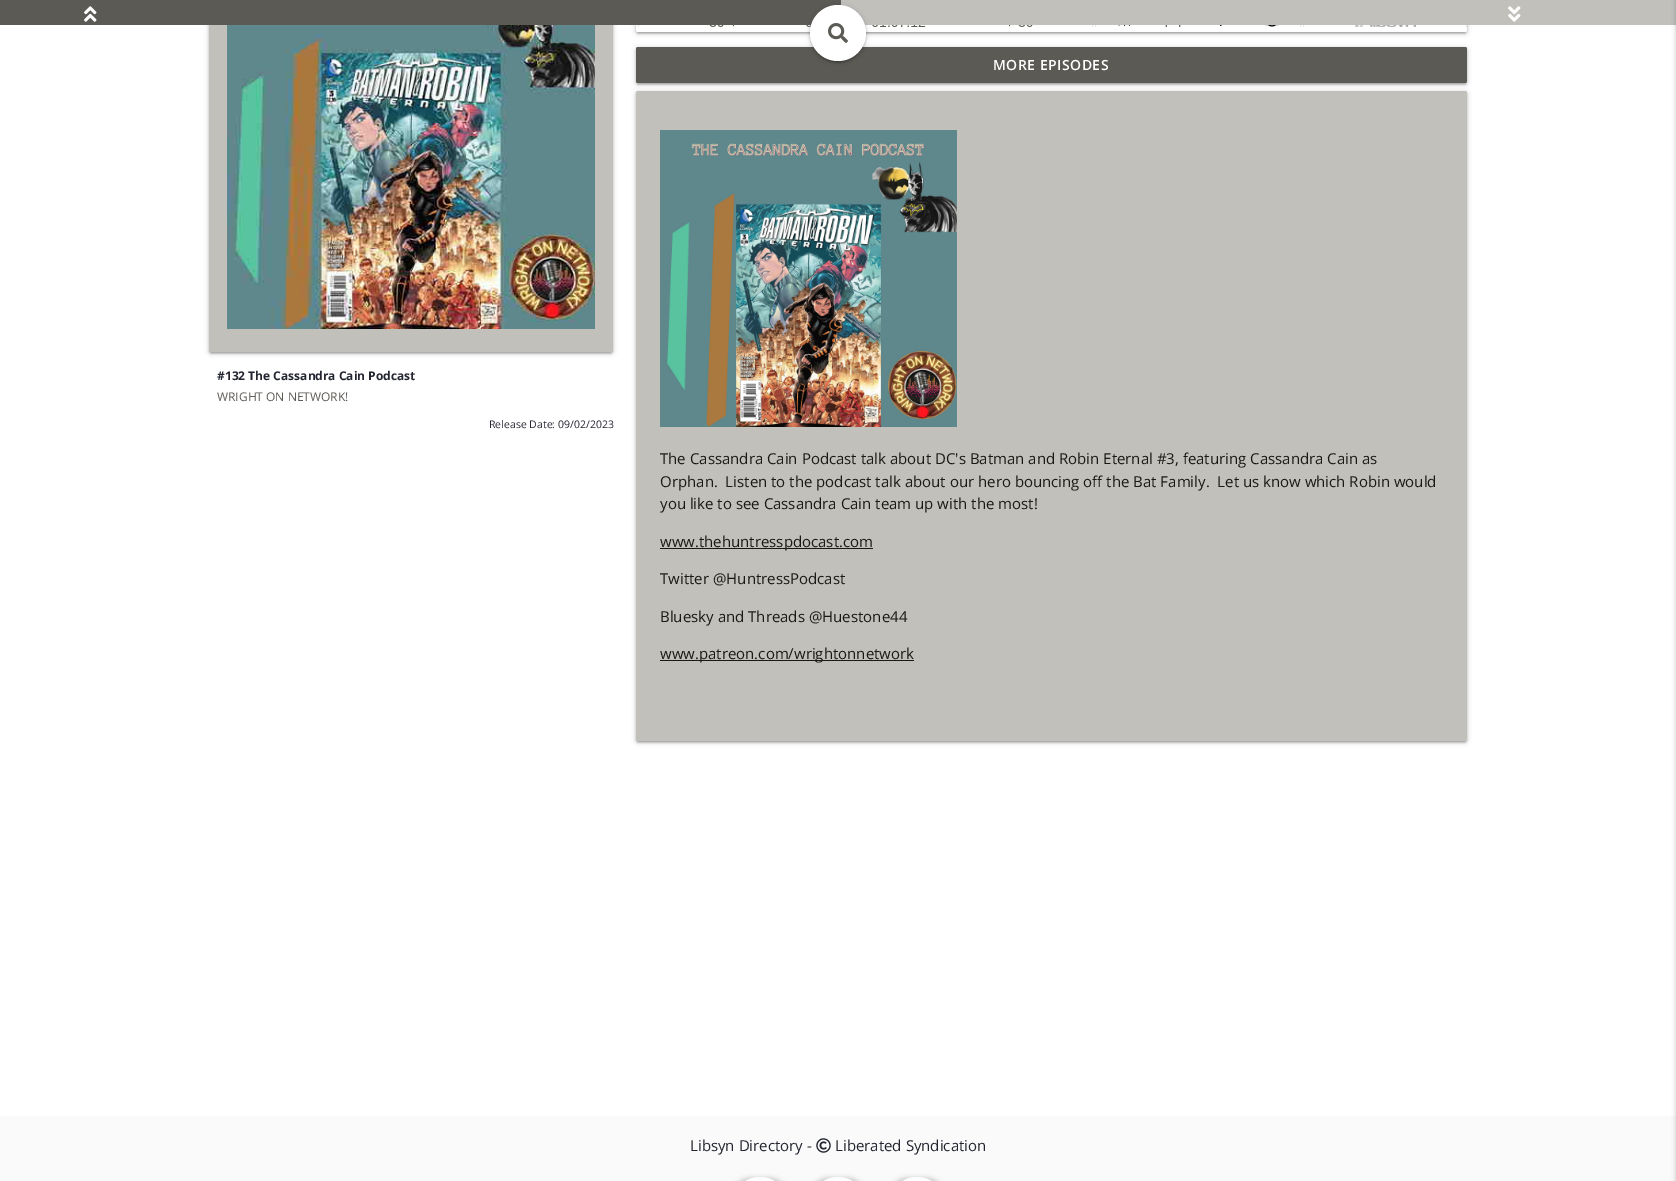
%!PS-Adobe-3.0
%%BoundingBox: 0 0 1676 1181
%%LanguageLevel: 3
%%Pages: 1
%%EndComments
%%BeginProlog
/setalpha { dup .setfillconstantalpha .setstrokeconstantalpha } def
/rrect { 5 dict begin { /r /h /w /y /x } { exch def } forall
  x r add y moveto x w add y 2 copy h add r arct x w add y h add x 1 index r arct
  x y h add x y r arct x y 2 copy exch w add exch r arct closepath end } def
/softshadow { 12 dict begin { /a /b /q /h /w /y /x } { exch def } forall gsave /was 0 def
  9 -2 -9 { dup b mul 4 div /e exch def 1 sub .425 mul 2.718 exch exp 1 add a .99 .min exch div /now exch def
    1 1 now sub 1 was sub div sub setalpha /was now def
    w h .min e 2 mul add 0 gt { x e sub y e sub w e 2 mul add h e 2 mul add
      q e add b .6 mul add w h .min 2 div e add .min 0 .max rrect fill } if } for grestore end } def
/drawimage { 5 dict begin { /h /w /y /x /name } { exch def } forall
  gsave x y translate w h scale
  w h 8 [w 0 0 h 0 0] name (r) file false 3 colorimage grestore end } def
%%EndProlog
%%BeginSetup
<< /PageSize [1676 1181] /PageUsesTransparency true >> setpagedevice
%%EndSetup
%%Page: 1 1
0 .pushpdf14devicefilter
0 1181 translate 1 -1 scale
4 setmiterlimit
1 setgray
0 0 1676 1181 rectfill
0 setgray
636 -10 831 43 2 2.5 0.2 softshadow
638 -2 827 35 0 0.5 0.12 softshadow
636 -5 831 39 2 1 0.14 softshadow
1 setgray
636 -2 831 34 2 rrect fill
0.757 0.753 0.733 setrgbcolor
841 0 835 25 rectfill
0 setgray
209 -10 404 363 2 2.5 0.2 softshadow
211 -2 400 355 0 0.5 0.12 softshadow
209 -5 404 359 2 1 0.14 softshadow
0.757 0.753 0.733 setrgbcolor
209 -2 404 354 2 rrect fill
0.361 0.353 0.329 setrgbcolor
0 0 841 25 rectfill
(images/1.raw) 84 6 13 16 drawimage
(images/4.raw) 636 25 831 2 drawimage
0 setgray
636 48 831 36 2 2.5 0.2 softshadow
638 52 827 32 0 0.5 0.12 softshadow
636 49 831 36 2 1 0.14 softshadow
0.361 0.353 0.329 setrgbcolor
636 47 831 36 2 rrect fill
0 setgray
810 6 56 56 28 2.5 0.2 softshadow
812 10 52 52 26 0.5 0.12 softshadow
810 7 56 56 28 1 0.14 softshadow
1 setgray
newpath 838 33 28 0 360 arc closepath fill
(images/2.raw) 828 23 20 20 drawimage
(images/3.raw) 1508 6 13 16 drawimage
(images/5.raw) 227 25 368 304 drawimage
0 setgray
636 92 831 650 2 2.5 0.2 softshadow
638 96 827 646 0 0.5 0.12 softshadow
636 93 831 650 2 1 0.14 softshadow
0.757 0.753 0.733 setrgbcolor
636 91 831 650 2 rrect fill
(images/6.raw) 660 130 297 297 drawimage
0.098 0.098 0.09 setrgbcolor
660 548 213 1 rectfill
660 660 254 1 rectfill
0.98 setgray
0 1116 1676 65 rectfill
0 setgray
1676 1 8 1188 0 2.5 0.2 softshadow
(images/7.raw) 816 1138 15 15 drawimage
732 1178 56 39 28 2.5 0.2 softshadow
1 setgray
732 1177 56 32 28 rrect fill
0 setgray
810 1178 56 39 28 2.5 0.2 softshadow
1 setgray
810 1177 56 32 28 rrect fill
0 setgray
889 1178 56 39 28 2.5 0.2 softshadow
1 setgray
889 1177 56 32 28 rrect fill
/OpenSans-SemiBold [14 0 0 -14 0 0] selectfont
993 70 moveto 0.5 0 (MORE EPISODES) ashow
/OpenSans-Bold [12 0 0 -12 0 0] selectfont
0.137 0.145 0.188 setrgbcolor
217 380 moveto (#132 The Cassandra Cain Podcast) show
/OpenSans-Regular [12 0 0 -12 0 0] selectfont
0.361 0.353 0.329 setrgbcolor
217 401 moveto (WRIGHT ON NETWORK!) show
/OpenSans-Regular [10.5 0 0 -10.5 0 0] selectfont
0.137 0.145 0.188 setrgbcolor
489 428 moveto (Release Date: 09/02/2023) show
/OpenSans-Regular [15 0 0 -15 0 0] selectfont
0.098 0.098 0.09 setrgbcolor
660 464 moveto (The Cassandra Cain Podcast talk about DC's Batman and Robin Eternal #3, featuring Cassandra Cain as) show
660 487 moveto (Orphan.  Listen to the podcast talk about our hero bouncing off the Bat Family.  Let us know which Robin would) show
660 509 moveto (you like to see Cassandra Cain team up with the most!) show
660 547 moveto (www.thehuntresspdocast.com) show
660 584 moveto (Twitter @HuntressPodcast) show
660 622 moveto (Bluesky and Threads @Huestone44) show
660 659 moveto (www.patreon.com/wrightonnetwork) show
0.137 0.145 0.188 setrgbcolor
690 1151 moveto (Libsyn Directory -) show
835 1151 moveto (Liberated Syndication) show
.poppdf14devicefilter showpage
%%EOF
